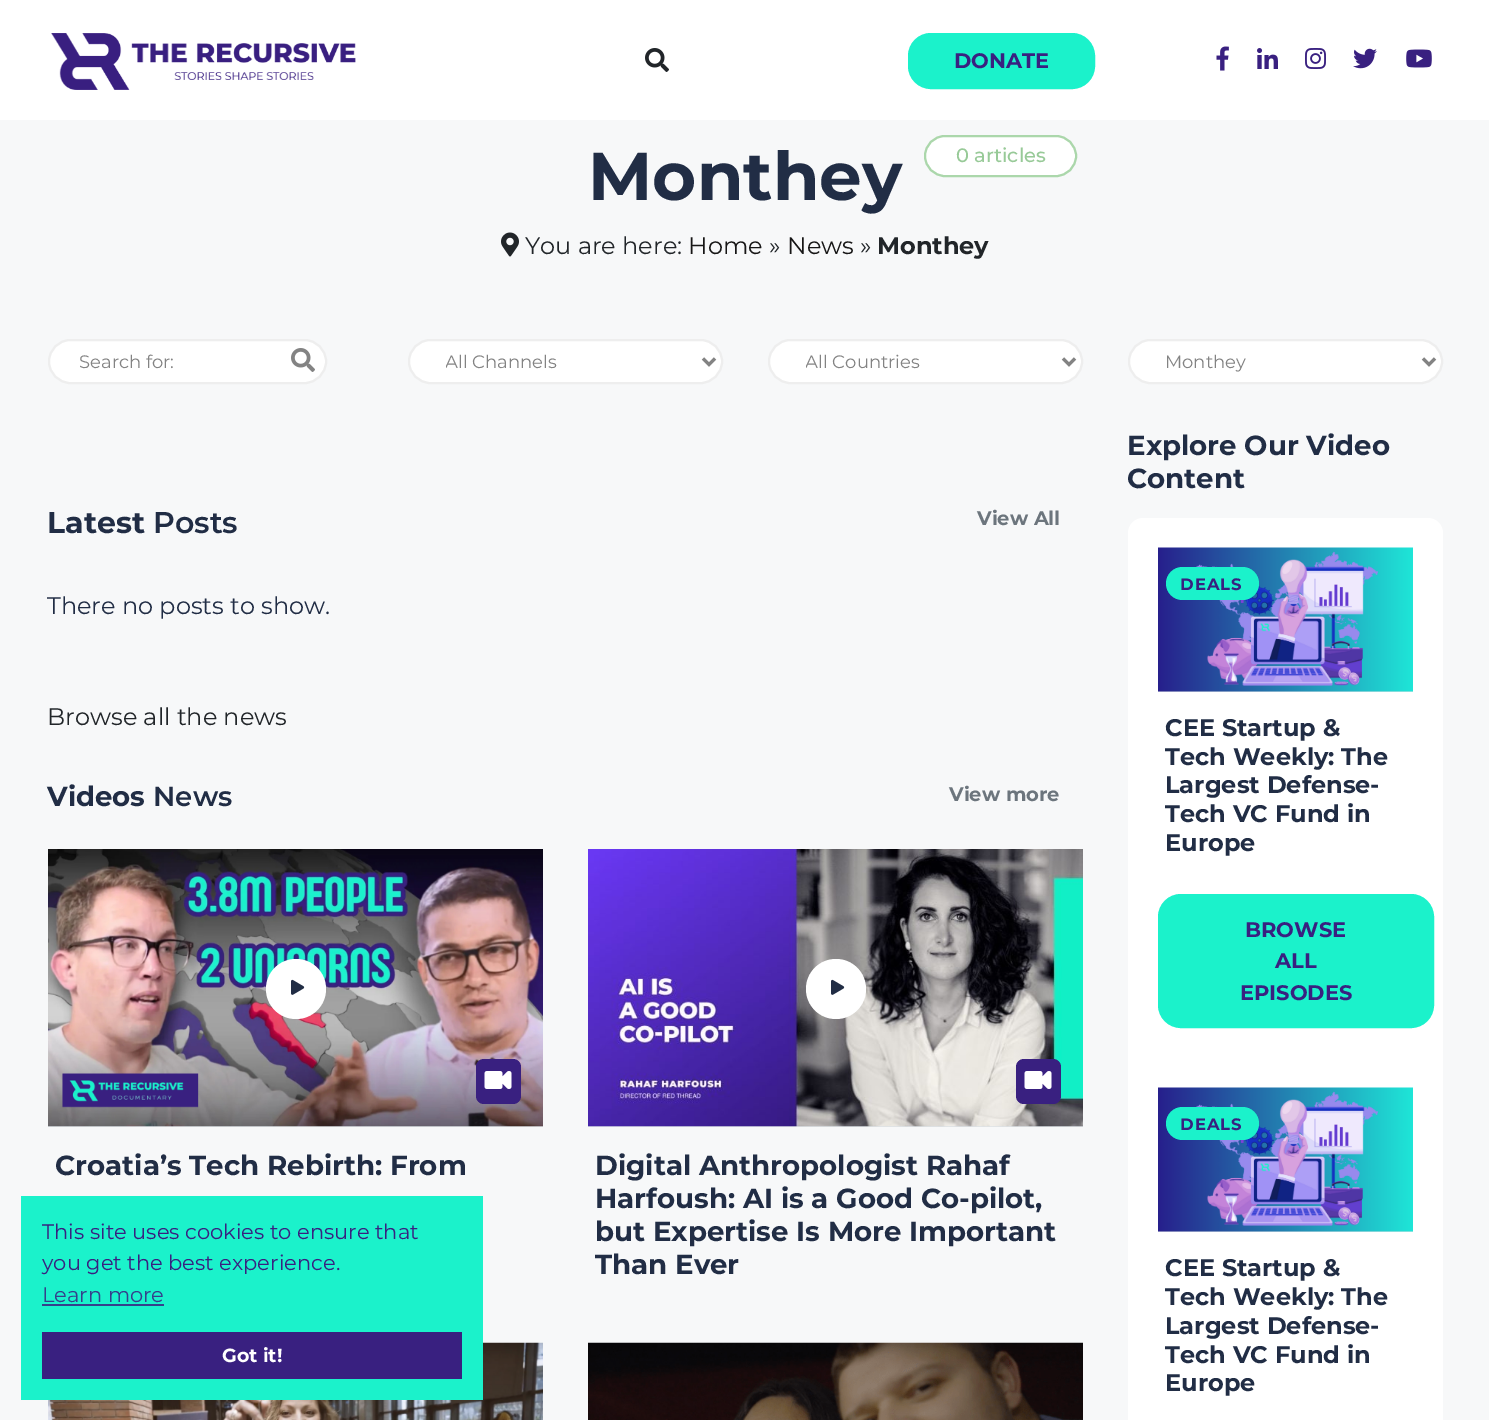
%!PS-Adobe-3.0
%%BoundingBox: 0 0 1489 1420
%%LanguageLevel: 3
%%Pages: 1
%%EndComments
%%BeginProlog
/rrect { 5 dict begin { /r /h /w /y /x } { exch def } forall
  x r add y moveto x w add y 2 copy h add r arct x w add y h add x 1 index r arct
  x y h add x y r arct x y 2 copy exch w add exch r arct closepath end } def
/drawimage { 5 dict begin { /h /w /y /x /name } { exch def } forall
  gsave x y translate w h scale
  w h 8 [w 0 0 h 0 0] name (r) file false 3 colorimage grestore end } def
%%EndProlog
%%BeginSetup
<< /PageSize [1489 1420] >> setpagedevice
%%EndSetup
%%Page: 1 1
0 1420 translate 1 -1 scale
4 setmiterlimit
0.969 0.973 0.976 setrgbcolor
0 0 1489 1420 rectfill
1 setgray
0 0 1489 120 rectfill
(images/1.raw) 51 33 305 57 drawimage
(images/2.raw) 645 48 24 24 drawimage
0.106 0.949 0.796 setrgbcolor
909 34 185 54 22 rrect gsave fill grestore
2 setlinewidth
stroke
(images/3.raw) 1216 46 13 25 drawimage
(images/4.raw) 1257 48 21 21 drawimage
(images/5.raw) 1305 48 21 21 drawimage
(images/6.raw) 1353 48 24 21 drawimage
(images/7.raw) 1406 49 26 19 drawimage
1 setgray
925 136 151 40 20 rrect gsave fill grestore
0.671 0.843 0.671 setrgbcolor
stroke
(images/8.raw) 501 232 18 25 drawimage
1 setgray
49 340 277 43 21.5 rrect gsave fill grestore
0.933 setgray
stroke
(images/9.raw) 291 348 24 24 drawimage
1 setgray
409 340 313 43 21.5 rrect gsave fill grestore
0.933 setgray
stroke
0.514 setgray
3 setlinewidth
newpath 703 358.5 moveto 709 364.5 lineto 715 358.5 lineto stroke
1 setgray
769 340 313 43 21.5 rrect gsave fill grestore
0.933 setgray
2 setlinewidth
stroke
0.514 setgray
3 setlinewidth
newpath 1063 358.5 moveto 1069 364.5 lineto 1075 358.5 lineto stroke
1 setgray
1129 340 313 43 21.5 rrect gsave fill grestore
0.933 setgray
2 setlinewidth
stroke
0.514 setgray
3 setlinewidth
newpath 1423 358.5 moveto 1429 364.5 lineto 1435 358.5 lineto stroke
0.863 0.886 0.902 setrgbcolor
48 1126 495 1 rectfill
(images/10.raw) 48 849 495 278 drawimage
1 setgray
newpath 296 989 30 0 360 arc closepath fill
(images/11.raw) 291 979 14 16 drawimage
0.224 0.125 0.502 setrgbcolor
476 1059 45 45 8 rrect fill
(images/12.raw) 484 1071 28 18 drawimage
0.863 0.886 0.902 setrgbcolor
588 1126 495 1 rectfill
(images/13.raw) 588 849 495 278 drawimage
1 setgray
newpath 836 989 30 0 360 arc closepath fill
(images/11.raw) 831 979 14 16 drawimage
0.224 0.125 0.502 setrgbcolor
1016 1059 45 45 8 rrect fill
(images/12.raw) 1024 1071 28 18 drawimage
(images/14.raw) 48 1342 495 78 drawimage
(images/15.raw) 588 1342 495 78 drawimage
1 setgray
1128 518 315 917 15 rrect fill
0.863 0.886 0.902 setrgbcolor
1158 691 255 1 rectfill
(images/16.raw) 1158 547 255 145 drawimage
0.106 0.949 0.796 setrgbcolor
1166 567 93 33 16.5 rrect fill
1159 895 274 132 22 rrect gsave fill grestore
2 setlinewidth
stroke
0.863 0.886 0.902 setrgbcolor
1158 1231 255 1 rectfill
(images/16.raw) 1158 1087 255 145 drawimage
0.106 0.949 0.796 setrgbcolor
1166 1107 93 33 16.5 rrect fill
21 1196 462 204 rectfill
0.208 0.251 0.545 setrgbcolor
42 1304 122 2 rectfill
0.224 0.125 0.502 setrgbcolor
42 1332 420 47 rectfill
/Montserrat-Bold [21 0 0 -21 0 0] selectfont
954 68 moveto (DONATE) show
/Montserrat-Bold [67.5 0 0 -67.5 0 0] selectfont
0.129 0.176 0.271 setrgbcolor
588 200 moveto (Monthey) show
/Montserrat-Medium [19.5 0 0 -19.5 0 0] selectfont
0.596 0.792 0.596 setrgbcolor
956 162 moveto (0 articles) show
/Montserrat-Regular [24 0 0 -24 0 0] selectfont
0.129 0.145 0.161 setrgbcolor
525 254 moveto (You are here:) show
0.09 0.086 0.086 setrgbcolor
688 254 moveto (Home) show
0.129 0.145 0.161 setrgbcolor
769 254 moveto (») show
0.09 0.086 0.086 setrgbcolor
787 254 moveto (News) show
0.129 0.145 0.161 setrgbcolor
860 254 moveto (») show
/Montserrat-Bold [24 0 0 -24 0 0] selectfont
877 254 moveto (Monthey) show
/Montserrat-Regular [18 0 0 -18 0 0] selectfont
0.514 setgray
79 368 moveto (Search for:) show
gsave
446 350 222 25 rectclip
445 368 moveto (All Channels) show
grestore
gsave
806 350 222 25 rectclip
805 368 moveto (All Countries) show
grestore
1165 368 moveto (Monthey) show
/Montserrat-Bold [30 0 0 -30 0 0] selectfont
0.129 0.176 0.271 setrgbcolor
47 533 moveto (Latest) show
/Montserrat-SemiBold [30 0 0 -30 0 0] selectfont
153 533 moveto (Posts) show
/Montserrat-Bold [19.5 0 0 -19.5 0 0] selectfont
0.424 0.459 0.49 setrgbcolor
977 525 moveto (View All) show
/Montserrat-Regular [24 0 0 -24 0 0] selectfont
0.129 0.176 0.271 setrgbcolor
47 614 moveto (There no posts to show.) show
0.129 0.145 0.161 setrgbcolor
47 725 moveto (Browse all the news) show
/Montserrat-Bold [27.6 0 0 -27.6 0 0] selectfont
0.129 0.176 0.271 setrgbcolor
47 806 moveto (Videos) show
/Montserrat-SemiBold [27.6 0 0 -27.6 0 0] selectfont
153 806 moveto (News) show
/Montserrat-Bold [19.5 0 0 -19.5 0 0] selectfont
0.424 0.459 0.49 setrgbcolor
949 801 moveto (View more) show
/Montserrat-Bold [27.6 0 0 -27.6 0 0] selectfont
0.129 0.176 0.271 setrgbcolor
55 1175 moveto (Croatia’s Tech Rebirth: From) show
595 1175 moveto (Digital Anthropologist Rahaf) show
595 1208 moveto (Harfoush: AI is a Good Co-pilot,) show
595 1241 moveto (but Expertise Is More Important) show
595 1274 moveto (Than Ever) show
1127 455 moveto (Explore Our Video) show
1127 488 moveto (Content) show
/Montserrat-Bold [16.5 0 0 -16.5 0 0] selectfont
0.224 0.125 0.502 setrgbcolor
1180 590 moveto 1 0 (DEALS) ashow
/Montserrat-Bold [24 0 0 -24 0 0] selectfont
0.129 0.176 0.271 setrgbcolor
1165 736 moveto (CEE Startup &) show
1165 765 moveto (Tech Weekly: The) show
1165 793 moveto (Largest Defense-) show
1165 822 moveto (Tech VC Fund in) show
1165 851 moveto (Europe) show
/Montserrat-Bold [21 0 0 -21 0 0] selectfont
0.224 0.125 0.502 setrgbcolor
1245 937 moveto (BROWSE) show
1275 968 moveto (ALL) show
1240 1000 moveto (EPISODES) show
/Montserrat-Bold [16.5 0 0 -16.5 0 0] selectfont
1180 1130 moveto 1 0 (DEALS) ashow
/Montserrat-Bold [24 0 0 -24 0 0] selectfont
0.129 0.176 0.271 setrgbcolor
1165 1276 moveto (CEE Startup &) show
1165 1305 moveto (Tech Weekly: The) show
1165 1334 moveto (Largest Defense-) show
1165 1363 moveto (Tech VC Fund in) show
1165 1391 moveto (Europe) show
/Montserrat-Regular [21 0 0 -21 0 0] selectfont
0.224 0.125 0.502 setrgbcolor
42 1239 moveto (This site uses cookies to ensure that) show
42 1270 moveto (you get the best experience.) show
0.208 0.251 0.545 setrgbcolor
42 1302 moveto (Learn more) show
/Montserrat-Bold [19 0 0 -19 0 0] selectfont
1 setgray
222 1362 moveto (Got it!) show
showpage
%%EOF
